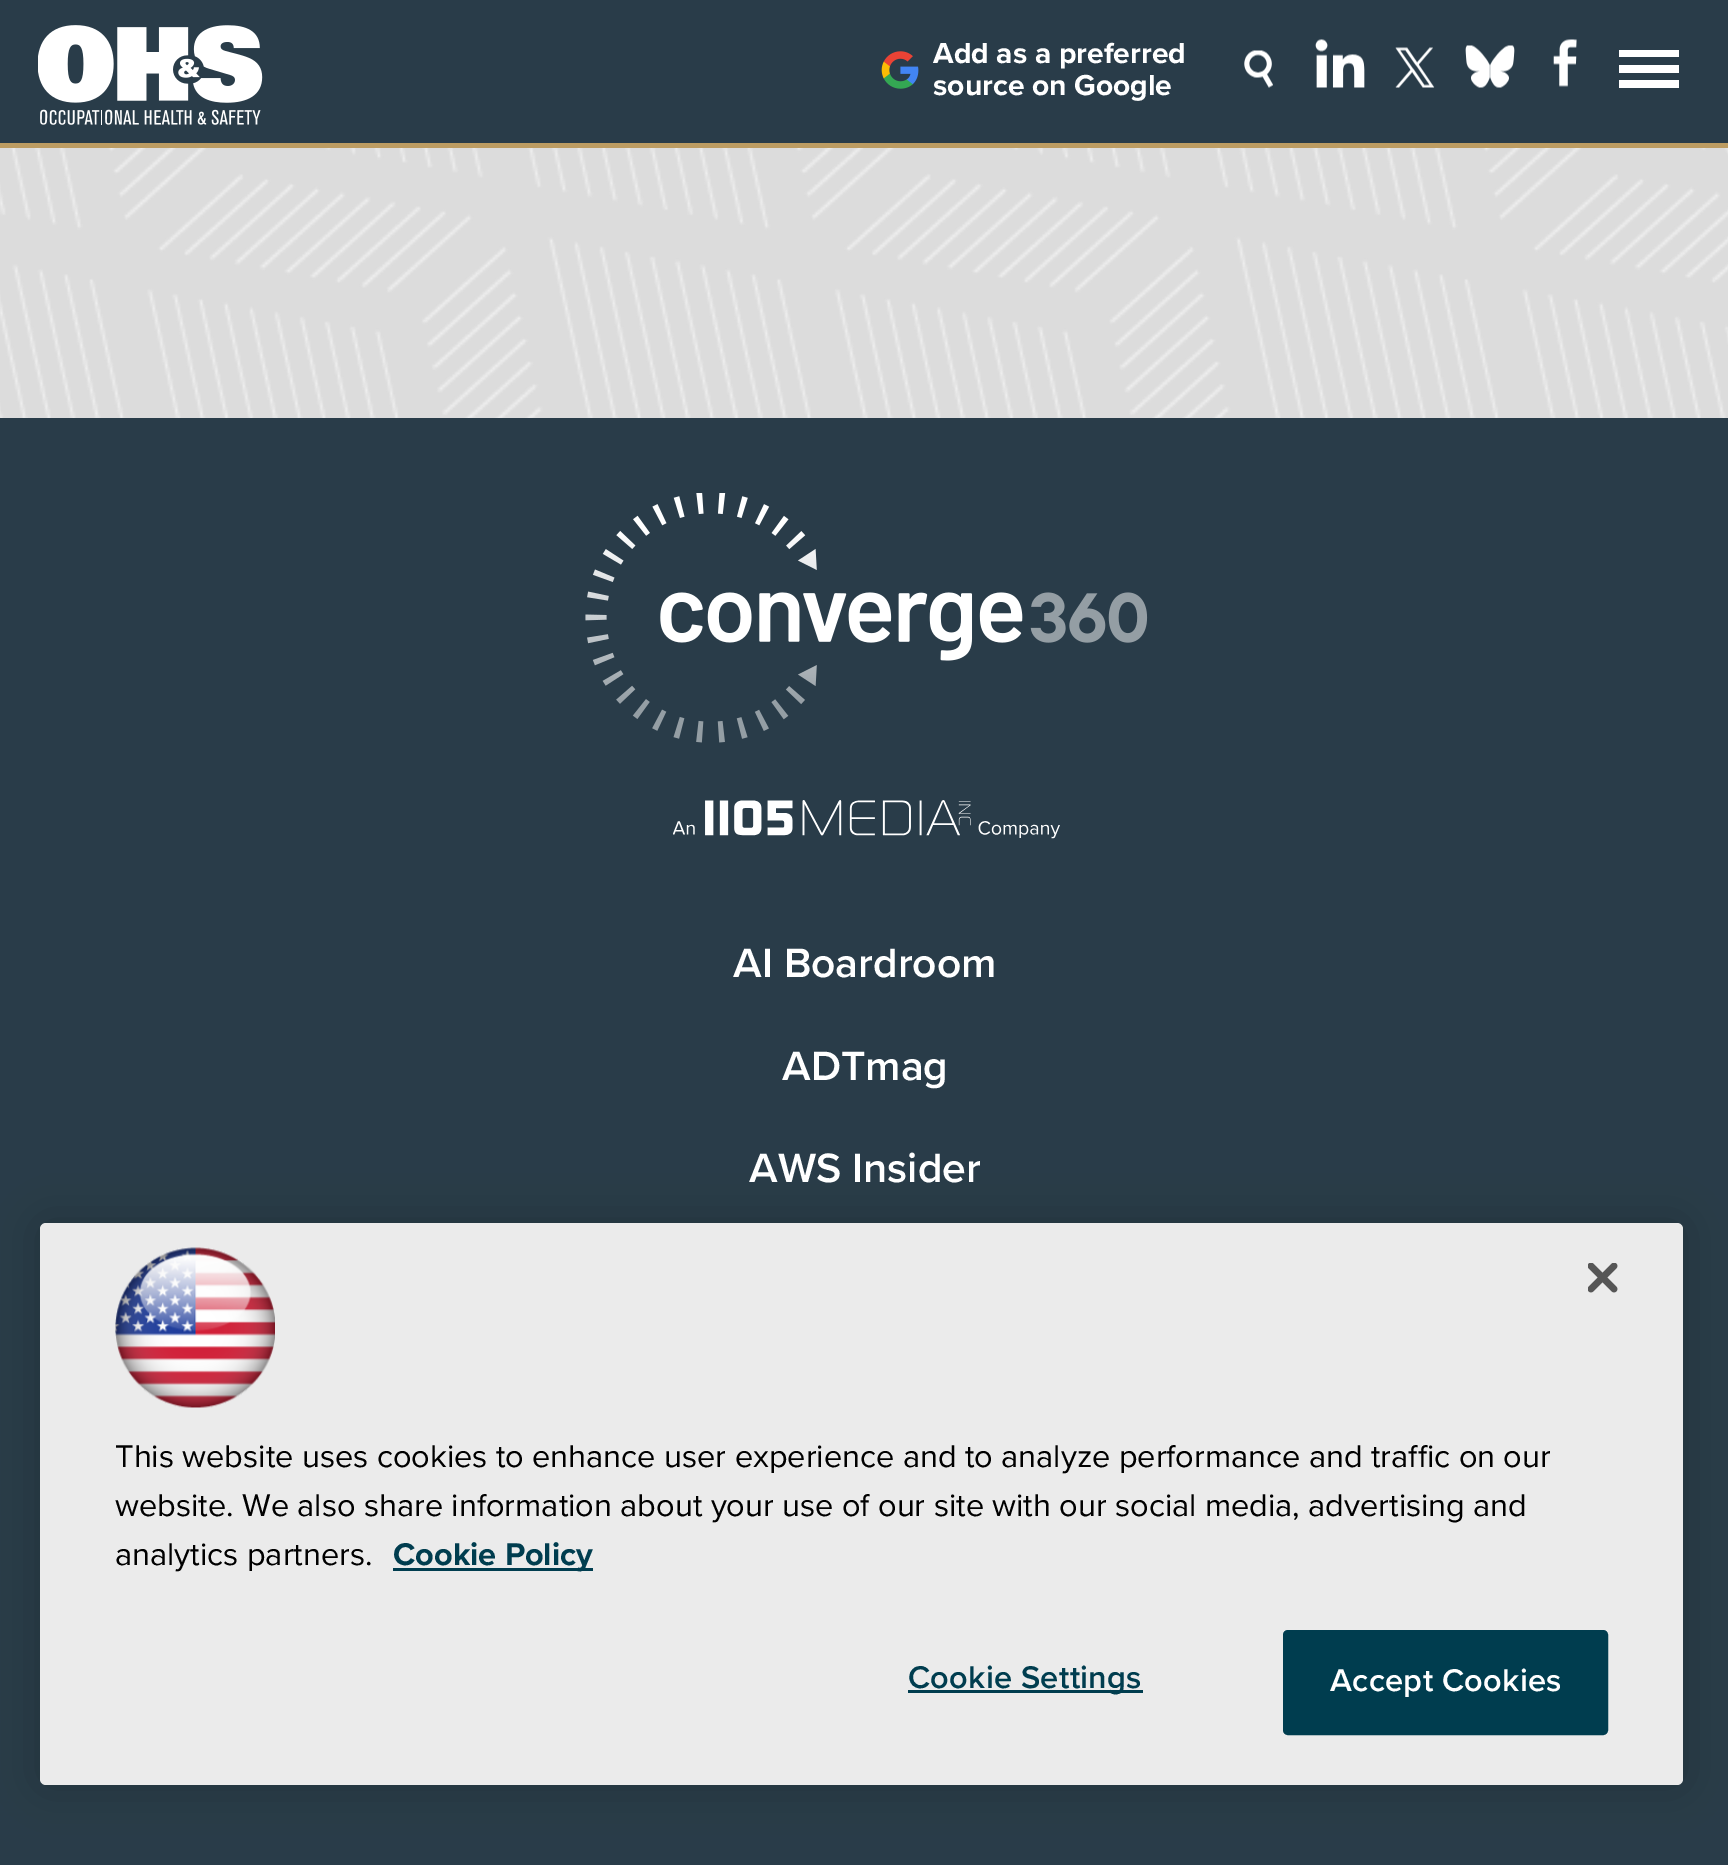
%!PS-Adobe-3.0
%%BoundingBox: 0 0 1728 1865
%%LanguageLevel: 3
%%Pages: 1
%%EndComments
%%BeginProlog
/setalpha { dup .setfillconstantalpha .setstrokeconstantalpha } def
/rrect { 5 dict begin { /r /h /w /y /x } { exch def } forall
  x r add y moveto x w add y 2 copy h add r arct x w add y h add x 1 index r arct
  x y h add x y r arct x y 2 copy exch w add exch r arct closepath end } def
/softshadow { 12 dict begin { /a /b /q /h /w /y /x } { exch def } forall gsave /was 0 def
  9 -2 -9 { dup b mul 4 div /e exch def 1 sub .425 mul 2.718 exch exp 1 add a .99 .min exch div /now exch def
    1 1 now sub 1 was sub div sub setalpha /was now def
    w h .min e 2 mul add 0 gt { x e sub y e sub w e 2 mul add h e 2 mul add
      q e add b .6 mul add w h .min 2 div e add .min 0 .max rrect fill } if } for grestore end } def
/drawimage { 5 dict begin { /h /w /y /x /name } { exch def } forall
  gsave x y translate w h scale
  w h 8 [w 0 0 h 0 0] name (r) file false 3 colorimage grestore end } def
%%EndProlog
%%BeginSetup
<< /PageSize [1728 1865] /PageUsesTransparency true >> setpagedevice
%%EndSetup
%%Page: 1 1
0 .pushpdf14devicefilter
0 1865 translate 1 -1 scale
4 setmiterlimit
0.863 setgray
0 0 1728 1865 rectfill
(images/1.raw) 0 148 1728 270 drawimage
0.161 0.235 0.286 setrgbcolor
0 0 1728 143 rectfill
0.737 0.612 0.384 setrgbcolor
0 143 1728 5 rectfill
(images/2.raw) 38 25 225 100 drawimage
1 setgray
1619 50 60 7 rectfill
1619 65 60 8 rectfill
1619 80 60 8 rectfill
(images/3.raw) 881 51 38 38 drawimage
(images/4.raw) 1244 50 29 38 drawimage
(images/5.raw) 1315 39 50 49 drawimage
(images/6.raw) 1395 47 40 41 drawimage
(images/7.raw) 1465 45 50 43 drawimage
(images/8.raw) 1553 39 24 48 drawimage
0.161 0.235 0.286 setrgbcolor
0 418 1728 1447 rectfill
(images/9.raw) 585 493 563 250 drawimage
(images/10.raw) 673 800 387 39 drawimage
0 setgray
40 1223 1643 562 6 22.5 0.2 softshadow
0.922 setgray
40 1223 1643 562 6 rrect fill
(images/11.raw) 1588 1263 30 30 drawimage
(images/12.raw) 115 1247 160 161 drawimage
0 0.239 0.31 setrgbcolor
393 1568 200 3 rectfill
908 1690 235 3 rectfill
1284.5 1631.5 322 102 3.5 rrect gsave fill grestore
3 setlinewidth
stroke
/ProximaNova-Bold [30 0 0 -30 0 0] selectfont
1 setgray
933 63 moveto (Add as a preferred) show
933 95 moveto (source on Google) show
/ProximaNova-SemiBold [42.5 0 0 -42.5 0 0] selectfont
733 977 moveto (AI Boardroom) show
782 1080 moveto (ADTmag) show
749 1182 moveto (AWS Insider) show
/ProximaNova-Regular [32.5 0 0 -32.5 0 0] selectfont
0 setgray
115 1467 moveto (This website uses cookies to enhance user experience and to analyze performance and traffic on our) show
115 1516 moveto (website. We also share information about your use of our site with our social media, advertising and) show
115 1565 moveto (analytics partners.) show
/ProximaNova-Bold [32.5 0 0 -32.5 0 0] selectfont
0 0.239 0.31 setrgbcolor
393 1565 moveto (Cookie Policy) show
/ProximaNova-SemiBold [32.5 0 0 -32.5 0 0] selectfont
908 1688 moveto 0.3 0 (Cookie Settings) ashow
1 setgray
1330 1691 moveto 0.3 0 (Accept Cookies) ashow
.poppdf14devicefilter showpage
%%EOF
